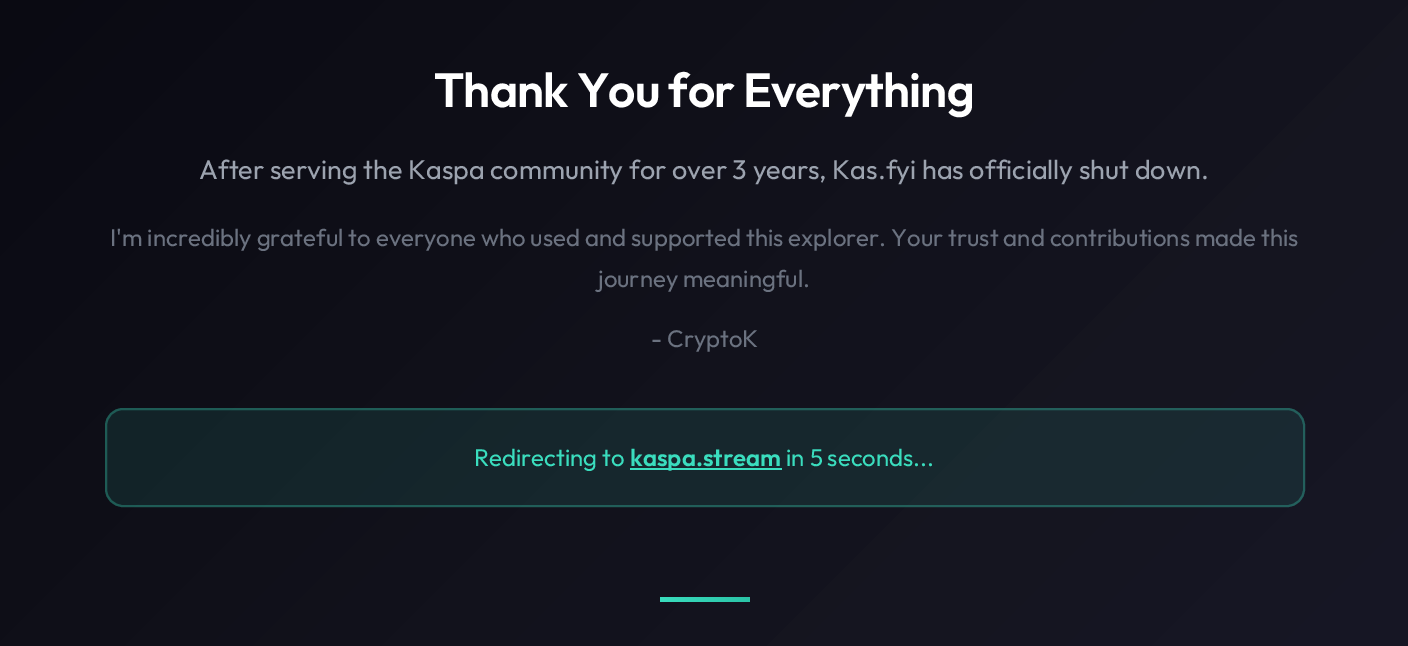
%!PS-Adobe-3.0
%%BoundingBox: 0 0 1408 646
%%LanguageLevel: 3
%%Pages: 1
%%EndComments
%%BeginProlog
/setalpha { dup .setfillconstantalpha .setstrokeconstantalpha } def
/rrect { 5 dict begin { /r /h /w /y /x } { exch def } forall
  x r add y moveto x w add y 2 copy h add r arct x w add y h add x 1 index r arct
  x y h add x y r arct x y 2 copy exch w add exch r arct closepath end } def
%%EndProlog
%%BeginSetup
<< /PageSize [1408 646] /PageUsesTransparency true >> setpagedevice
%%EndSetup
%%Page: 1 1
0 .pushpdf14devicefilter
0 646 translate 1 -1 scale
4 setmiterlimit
1 setgray
0 0 1408 646 rectfill
gsave newpath 0 0 moveto 1408 0 lineto 1408 646 lineto 0 646 lineto closepath clip newpath
<< /ShadingType 2 /ColorSpace /DeviceRGB /Coords [-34 34 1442 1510] /Extend [true true] /Function << /FunctionType 3 /Domain [0 1] /Functions [<< /FunctionType 2 /Domain [0 1] /C0 [0.039 0.039 0.071] /C1 [0.082 0.082 0.125] /N 1 >> << /FunctionType 2 /Domain [0 1] /C0 [0.082 0.082 0.125] /C1 [0.102 0.102 0.18] /N 1 >>] /Bounds [0.5] /Encode [0 1 0 1] >> >> shfill grestore
0.1 setalpha
0.227 0.867 0.745 setrgbcolor
105 408 1200 99 18 rrect fill
0.3 setalpha
2 setlinewidth
106 409 1198 97 17 rrect stroke
1 setalpha
630 468 152 2 rectfill
gsave 660 597 90 5 2.5 rrect clip newpath
<< /ShadingType 2 /ColorSpace /DeviceRGB /Coords [660 599 750 599] /Extend [true true] /Function << /FunctionType 2 /Domain [0 1] /C0 [0.227 0.867 0.745] /C1 [0.169 0.769 0.659] /N 1 >> >> shfill grestore
/Outfit-SemiBold [48 0 0 -48 0 0] selectfont
1 setgray
434 107 moveto -0.75 0 (Thank You for Everything) ashow
/Outfit-Regular [27 0 0 -27 0 0] selectfont
0.612 0.639 0.686 setrgbcolor
199 179 moveto (After serving the Kaspa community for over 3 years, Kas.fyi has officially shut down.) show
/Outfit-Regular [24 0 0 -24 0 0] selectfont
0.42 0.447 0.502 setrgbcolor
110 246 moveto (I'm incredibly grateful to everyone who used and supported this explorer. Your trust and contributions made this) show
598 287 moveto (journey meaningful.) show
651 347 moveto (- CryptoK) show
0.227 0.867 0.745 setrgbcolor
474 466 moveto (Redirecting to) show
/Outfit-SemiBold [24 0 0 -24 0 0] selectfont
630 466 moveto (kaspa.stream) show
/Outfit-Regular [24 0 0 -24 0 0] selectfont
786 466 moveto (in 5 seconds...) show
.poppdf14devicefilter showpage
%%EOF
